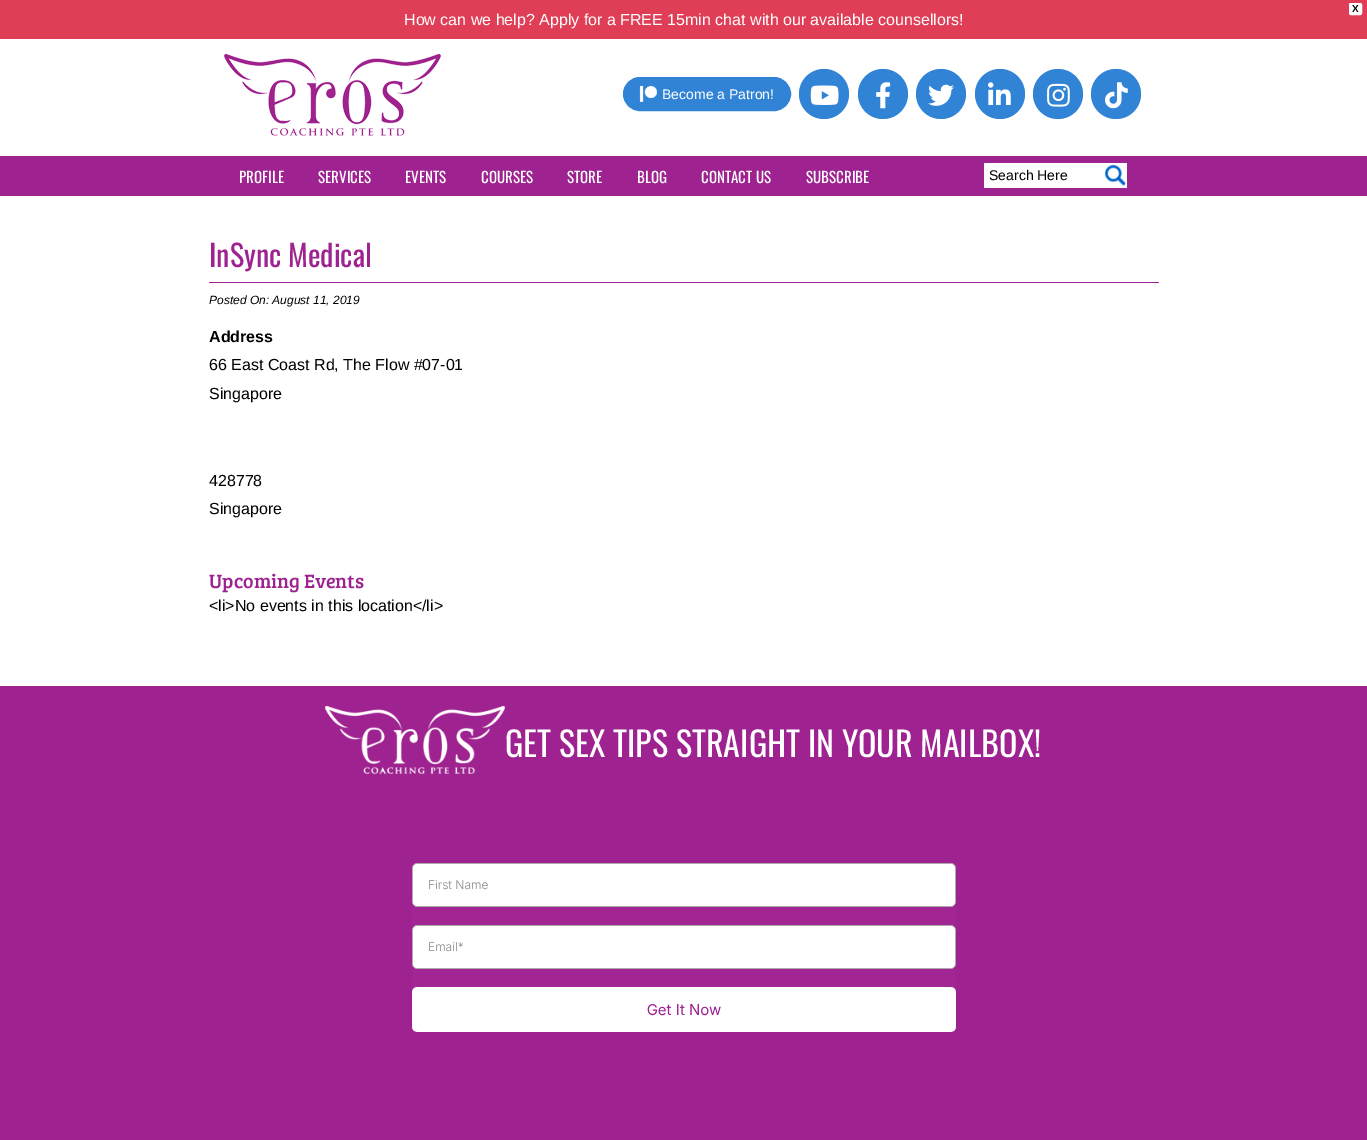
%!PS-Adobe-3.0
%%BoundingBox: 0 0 1367 1140
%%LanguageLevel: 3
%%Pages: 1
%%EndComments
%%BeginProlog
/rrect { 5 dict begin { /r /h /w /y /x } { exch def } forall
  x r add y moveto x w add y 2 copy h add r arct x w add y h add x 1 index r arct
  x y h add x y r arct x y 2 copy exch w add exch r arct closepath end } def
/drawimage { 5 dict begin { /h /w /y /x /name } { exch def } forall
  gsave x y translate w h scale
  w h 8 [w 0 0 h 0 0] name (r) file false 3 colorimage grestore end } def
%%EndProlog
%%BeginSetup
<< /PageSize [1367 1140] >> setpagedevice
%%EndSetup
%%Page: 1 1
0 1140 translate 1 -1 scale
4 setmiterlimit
1 setgray
0 0 1367 1140 rectfill
0.875 0.243 0.337 setrgbcolor
0 0 1367 39 rectfill
1 setgray
1349.5 3.5 12 11 1.5 rrect gsave fill grestore
stroke
(images/1.raw) 224 54 217 82 drawimage
0.192 0.514 0.839 setrgbcolor
623.5 77.5 167 33 16.5 rrect gsave fill grestore
stroke
(images/2.raw) 639 85 18 17 drawimage
newpath 824 94 25 0 360 arc closepath fill
(images/3.raw) 810 85 29 20 drawimage
newpath 883 94 25 0 360 arc closepath fill
(images/4.raw) 876 82 15 27 drawimage
newpath 941 94 25 0 360 arc closepath fill
(images/5.raw) 928 84 26 22 drawimage
newpath 1000 94 25 0 360 arc closepath fill
(images/6.raw) 988 82 23 23 drawimage
newpath 1058 94 25 0 360 arc closepath fill
(images/7.raw) 1047 83 23 24 drawimage
newpath 1116 94 25 0 360 arc closepath fill
(images/8.raw) 1105 82 23 27 drawimage
0.62 0.133 0.565 setrgbcolor
0 156 1367 40 rectfill
1 setgray
984 163 120 25 rectfill
(images/9.raw) 1104 163 23 25 drawimage
0.62 0.133 0.565 setrgbcolor
209 282 950 1 rectfill
0.624 0.133 0.569 setrgbcolor
0 686 1367 454 rectfill
(images/10.raw) 325 706 180 68 drawimage
(images/11.raw) 412 863 544 169 drawimage
/LiberationSans-Bold [10 0 0 -10 0 0] selectfont
0 setgray
1352 12 moveto (X) show
/LiberationSans-Regular [16 0 0 -16 0 0] selectfont
1 setgray
404 25 moveto (How can we help? Apply for a FREE 15min chat with our available counsellors!) show
/LiberationSans-Regular [14 0 0 -14 0 0] selectfont
662 99 moveto (Become a Patron!) show
/Oswald-Regular [15 0 0 -15 0 0] selectfont
239 183 moveto (PROFILE) show
318 183 moveto (SERVICES) show
405 183 moveto (EVENTS) show
481 183 moveto (COURSES) show
567 183 moveto (STORE) show
637 183 moveto (BLOG) show
701 183 moveto (CONTACT US) show
806 183 moveto (SUBSCRIBE) show
/LiberationSans-Regular [14 0 0 -14 0 0] selectfont
0 setgray
989 180 moveto (Search Here) show
/Oswald-Regular [30 0 0 -30 0 0] selectfont
0.62 0.133 0.565 setrgbcolor
209 267 moveto (InSync Medical) show
/LiberationSans-Italic [12 0 0 -12 0 0] selectfont
0 setgray
209 304 moveto (Posted On: August 11, 2019) show
/LiberationSans-Bold [16 0 0 -16 0 0] selectfont
209 342 moveto (Address) show
/LiberationSans-Regular [16 0 0 -16 0 0] selectfont
209 370 moveto (66 East Coast Rd, The Flow #07-01) show
209 399 moveto (Singapore) show
209 486 moveto (428778) show
209 514 moveto (Singapore) show
/BreeSerif-Regular [20 0 0 -20 0 0] selectfont
0.62 0.133 0.565 setrgbcolor
209 588 moveto (Upcoming Events) show
/LiberationSans-Regular [16 0 0 -16 0 0] selectfont
0 setgray
209 611 moveto (<li>No events in this location</li>) show
/Oswald-Regular [34 0 0 -34 0 0] selectfont
1 setgray
505 757 moveto (GET SEX TIPS STRAIGHT IN YOUR MAILBOX!) show
showpage
%%EOF
